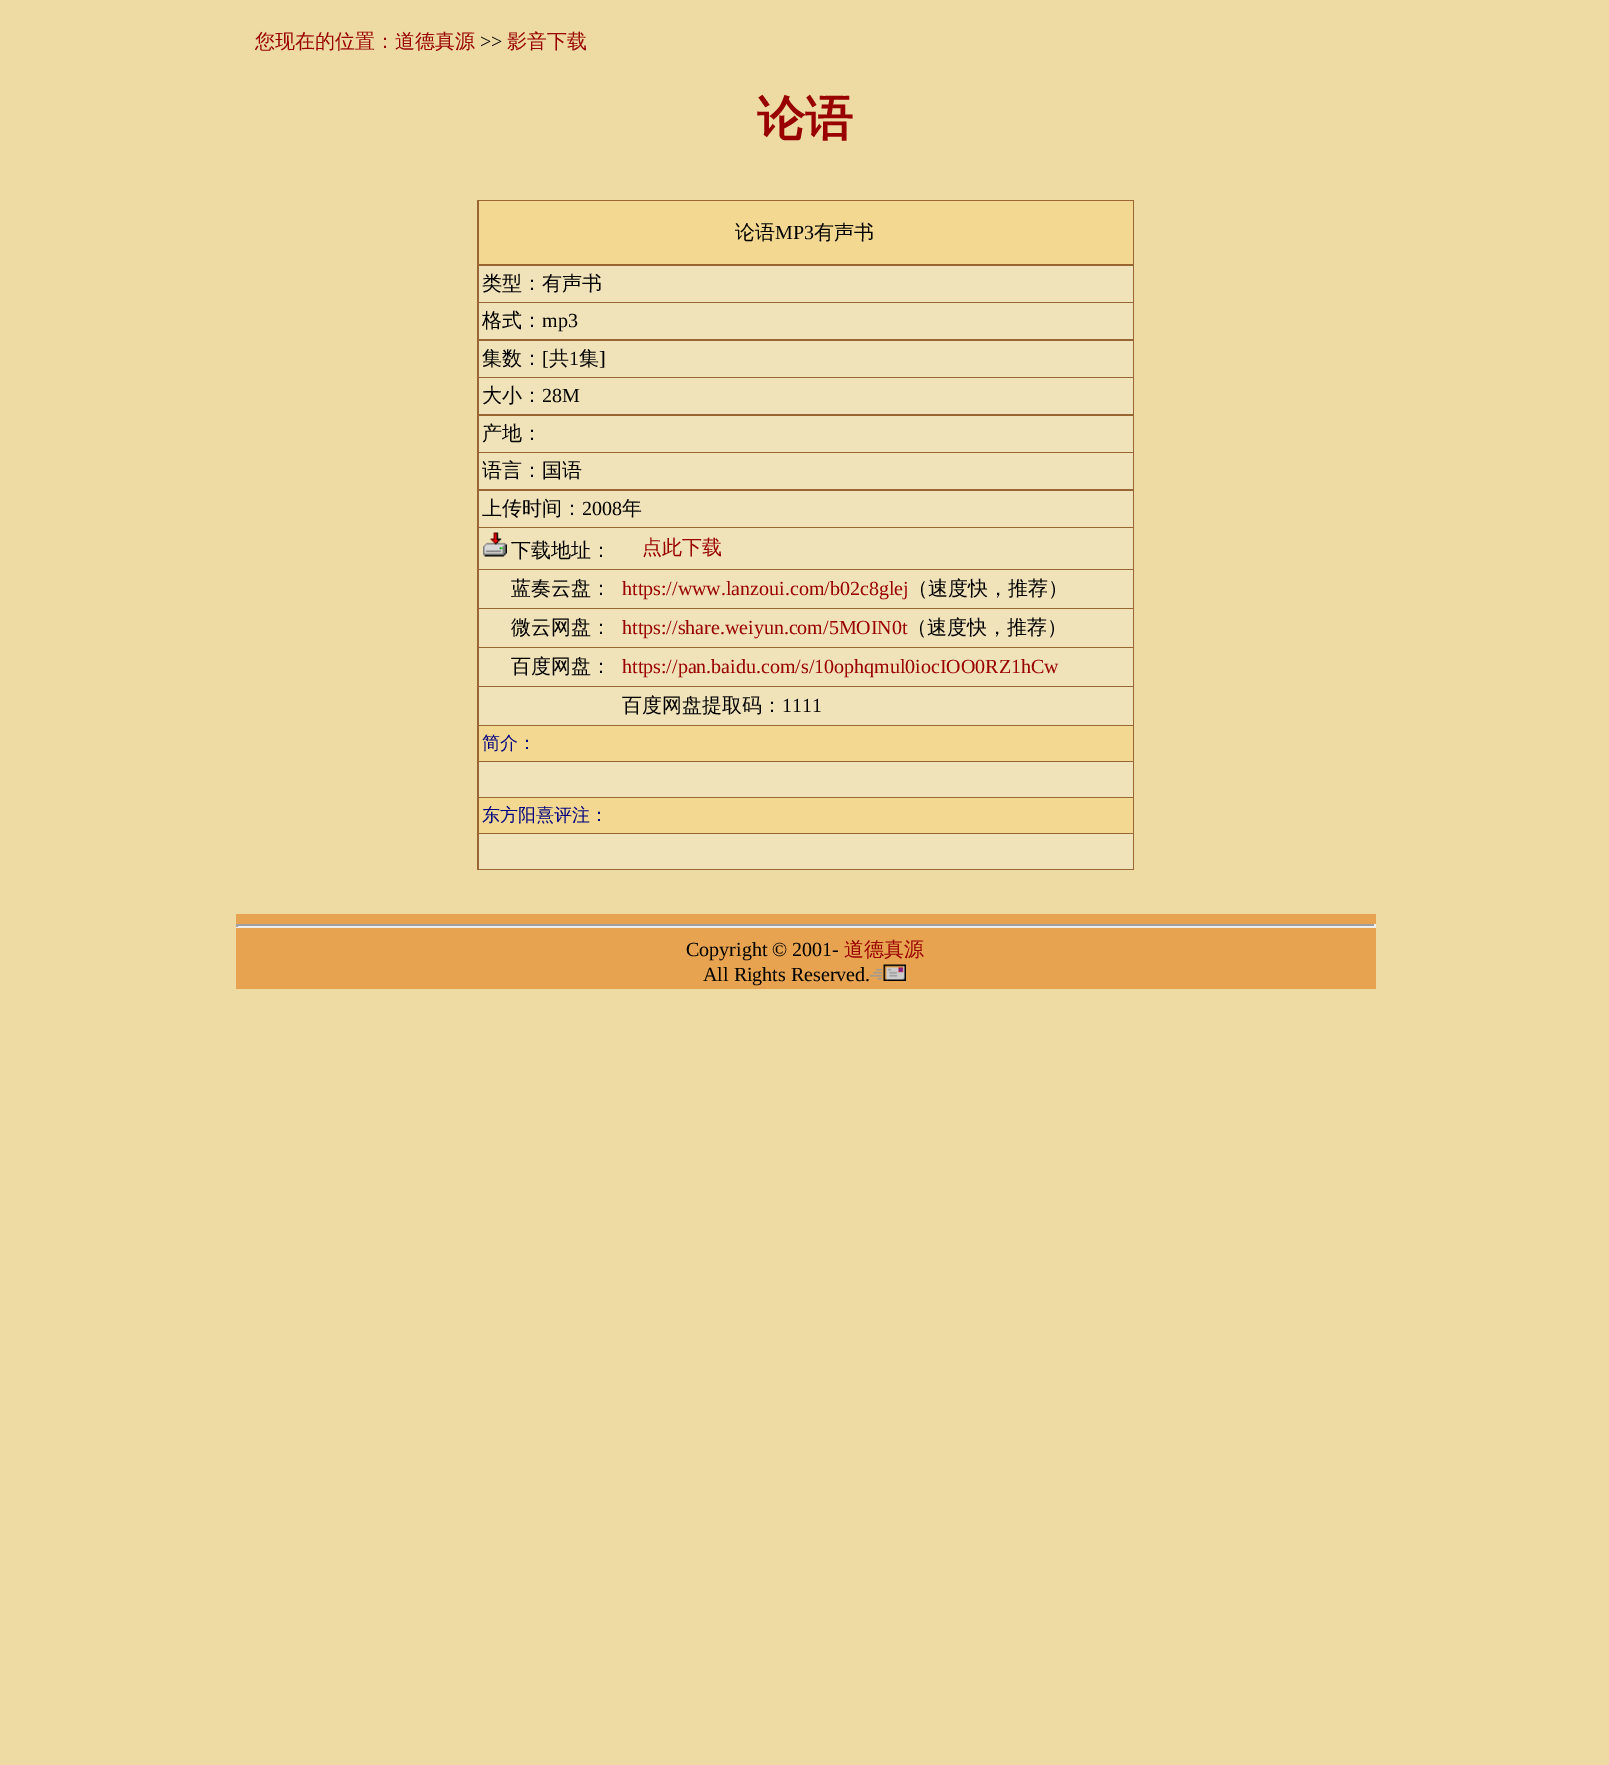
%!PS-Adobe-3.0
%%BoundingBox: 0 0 1609 1765
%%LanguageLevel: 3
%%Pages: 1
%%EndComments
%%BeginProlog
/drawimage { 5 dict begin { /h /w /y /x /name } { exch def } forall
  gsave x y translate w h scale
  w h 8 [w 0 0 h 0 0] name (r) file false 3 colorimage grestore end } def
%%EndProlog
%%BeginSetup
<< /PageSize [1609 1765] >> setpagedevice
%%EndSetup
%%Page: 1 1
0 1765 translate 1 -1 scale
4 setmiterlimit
0.933 0.859 0.639 setrgbcolor
0 0 1609 1765 rectfill
0.6 0.4 0.2 setrgbcolor
477 200 657 670 rectfill
0.953 0.847 0.569 setrgbcolor
479 201 654 63 rectfill
0.941 0.886 0.725 setrgbcolor
479 266 654 36 rectfill
479 303 654 36 rectfill
479 341 654 36 rectfill
479 378 654 36 rectfill
479 416 654 36 rectfill
479 453 654 36 rectfill
479 491 654 36 rectfill
479 528 654 41 rectfill
(images/1.raw) 483 532 24 25 drawimage
479 570 654 38 rectfill
479 609 654 38 rectfill
479 648 654 38 rectfill
479 687 654 38 rectfill
0.953 0.847 0.569 setrgbcolor
479 726 654 35 rectfill
0.941 0.886 0.725 setrgbcolor
479 762 654 35 rectfill
0.953 0.847 0.569 setrgbcolor
479 798 654 35 rectfill
0.941 0.886 0.725 setrgbcolor
479 834 654 35 rectfill
0.906 0.639 0.31 setrgbcolor
236 914 1140 75 rectfill
0.624 setgray
236 924 1140 2 rectfill
0.933 setgray
1374 924 2 3 rectfill
236 926 1140 2 rectfill
0.624 setgray
236 924 2 3 rectfill
(images/2.raw) 870 964 36 17 drawimage
/WenQuanYiZenHei-Medium [20 0 0 -20 0 0] selectfont
0.6 0 0 setrgbcolor
255 48 moveto (您现在的位置：道德真源) show
/LiberationSerif-Regular [20 0 0 -20 0 0] selectfont
0 setgray
480 48 moveto (>>) show
/WenQuanYiZenHei-Medium [20 0 0 -20 0 0] selectfont
0.6 0 0 setrgbcolor
507 48 moveto (影音下载) show
/WenQuanYiZenHei-Bold [48 0 0 -48 0 0] selectfont
757 135 moveto (论语) show
/WenQuanYiZenHei-Medium [20 0 0 -20 0 0] selectfont
0 setgray
735 239 moveto (论语) show
/LiberationSerif-Regular [20 0 0 -20 0 0] selectfont
775 239 moveto (MP3) show
/WenQuanYiZenHei-Medium [20 0 0 -20 0 0] selectfont
814 239 moveto (有声书) show
482 290 moveto (类型：有声书) show
482 327 moveto (格式：) show
/LiberationSerif-Regular [20 0 0 -20 0 0] selectfont
542 327 moveto (mp3) show
/WenQuanYiZenHei-Medium [20 0 0 -20 0 0] selectfont
482 365 moveto (集数：) show
/LiberationSerif-Regular [20 0 0 -20 0 0] selectfont
542 365 moveto ([) show
/WenQuanYiZenHei-Medium [20 0 0 -20 0 0] selectfont
549 365 moveto (共) show
/LiberationSerif-Regular [20 0 0 -20 0 0] selectfont
569 365 moveto (1) show
/WenQuanYiZenHei-Medium [20 0 0 -20 0 0] selectfont
579 365 moveto (集) show
/LiberationSerif-Regular [20 0 0 -20 0 0] selectfont
599 365 moveto (]) show
/WenQuanYiZenHei-Medium [20 0 0 -20 0 0] selectfont
482 402 moveto (大小：) show
/LiberationSerif-Regular [20 0 0 -20 0 0] selectfont
542 402 moveto (28M) show
/WenQuanYiZenHei-Medium [20 0 0 -20 0 0] selectfont
482 440 moveto (产地：) show
482 477 moveto (语言：国语) show
482 515 moveto (上传时间：) show
/LiberationSerif-Regular [20 0 0 -20 0 0] selectfont
582 515 moveto (2008) show
/WenQuanYiZenHei-Medium [20 0 0 -20 0 0] selectfont
622 515 moveto (年) show
511 557 moveto (下载地址：) show
0.6 0 0 setrgbcolor
642 554 moveto (点此下载) show
0 setgray
511 595 moveto (蓝奏云盘：) show
/LiberationSerif-Regular [20 0 0 -20 0 0] selectfont
0.6 0 0 setrgbcolor
622 595 moveto (https://www.lanzoui.com/b02c8glej) show
/WenQuanYiZenHei-Medium [20 0 0 -20 0 0] selectfont
0 setgray
908 595 moveto (（速度快，推荐）) show
511 634 moveto (微云网盘：) show
/LiberationSerif-Regular [20 0 0 -20 0 0] selectfont
0.6 0 0 setrgbcolor
622 634 moveto (https://share.weiyun.com/5MOIN0t) show
/WenQuanYiZenHei-Medium [20 0 0 -20 0 0] selectfont
0 setgray
907 634 moveto (（速度快，推荐）) show
511 673 moveto (百度网盘：) show
/LiberationSerif-Regular [20 0 0 -20 0 0] selectfont
0.6 0 0 setrgbcolor
622 673 moveto (https://pan.baidu.com/s/10ophqmul0iocIOO0RZ1hCw) show
/WenQuanYiZenHei-Medium [20 0 0 -20 0 0] selectfont
0 setgray
622 712 moveto (百度网盘提取码：) show
/LiberationSerif-Regular [20 0 0 -20 0 0] selectfont
782 712 moveto (1111) show
/WenQuanYiZenHei-Medium [18 0 0 -18 0 0] selectfont
0 0 0.502 setrgbcolor
482 749 moveto (简介：) show
482 821 moveto (东方阳熹评注：) show
/LiberationSerif-Regular [20 0 0 -20 0 0] selectfont
0 setgray
686 956 moveto (Copyright © 2001-) show
/WenQuanYiZenHei-Medium [20 0 0 -20 0 0] selectfont
0.6 0 0 setrgbcolor
844 956 moveto (道德真源) show
/LiberationSerif-Regular [20 0 0 -20 0 0] selectfont
0 setgray
703 981 moveto (All Rights Reserved.) show
showpage
%%EOF
